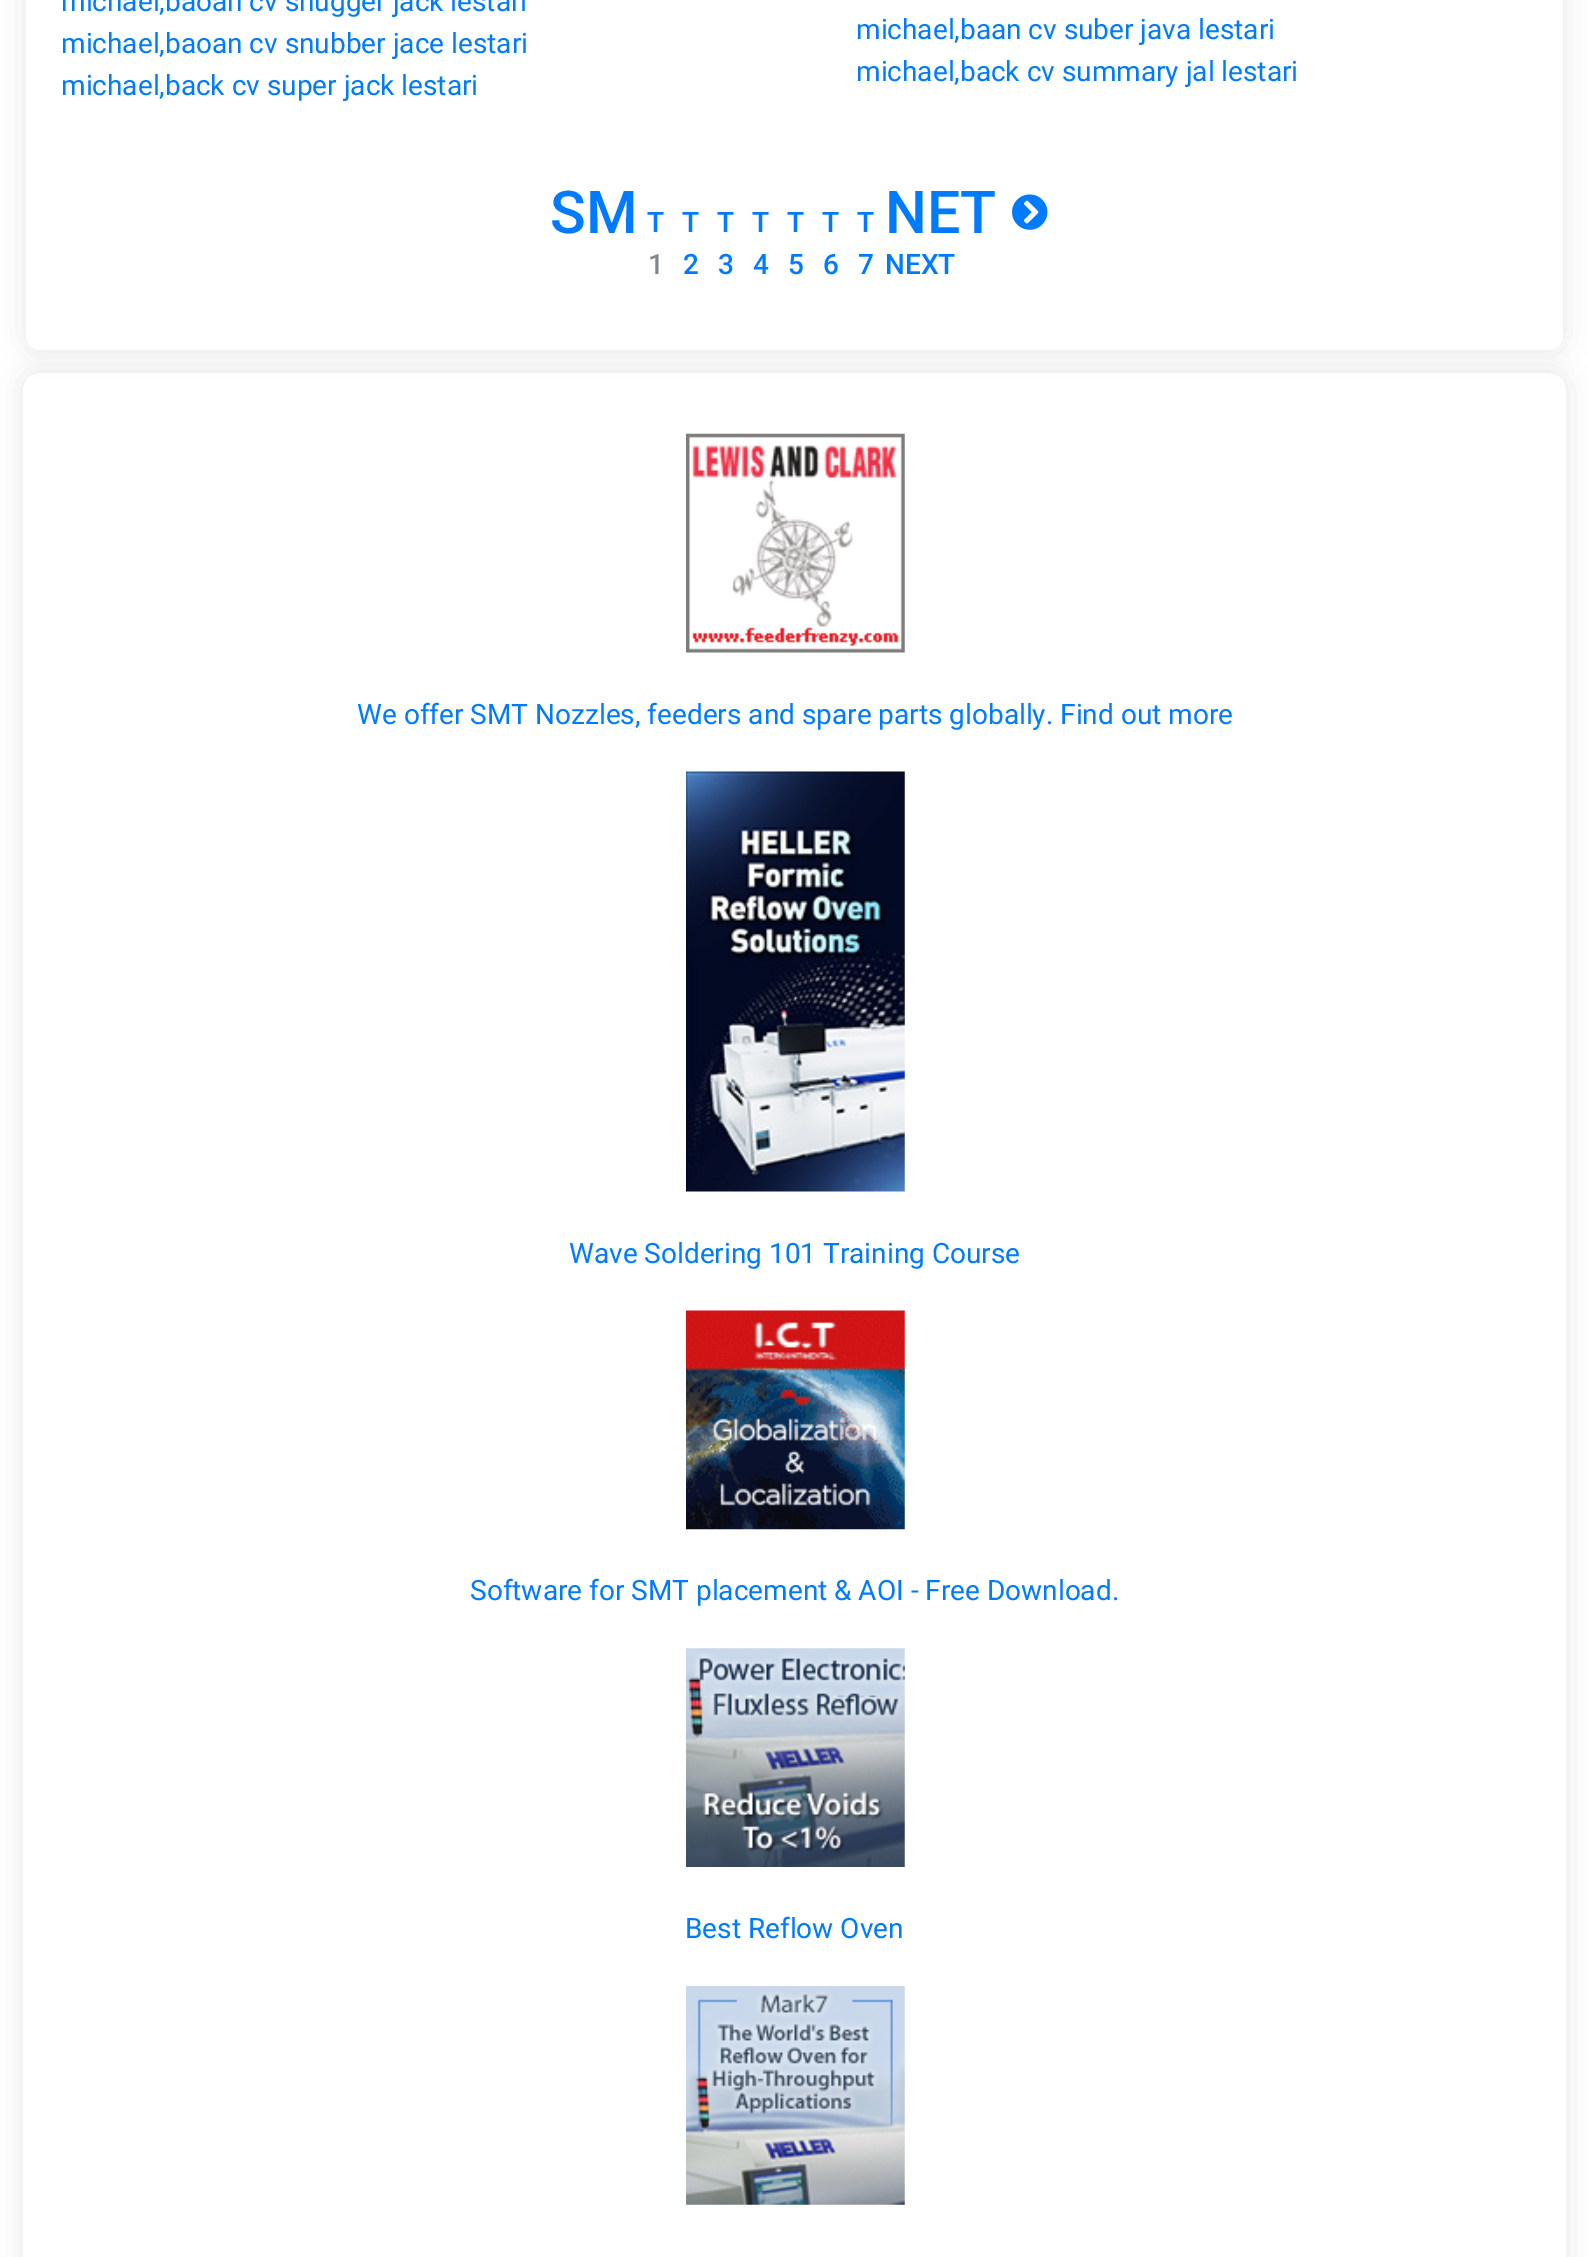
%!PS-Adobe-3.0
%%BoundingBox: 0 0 1588 2257
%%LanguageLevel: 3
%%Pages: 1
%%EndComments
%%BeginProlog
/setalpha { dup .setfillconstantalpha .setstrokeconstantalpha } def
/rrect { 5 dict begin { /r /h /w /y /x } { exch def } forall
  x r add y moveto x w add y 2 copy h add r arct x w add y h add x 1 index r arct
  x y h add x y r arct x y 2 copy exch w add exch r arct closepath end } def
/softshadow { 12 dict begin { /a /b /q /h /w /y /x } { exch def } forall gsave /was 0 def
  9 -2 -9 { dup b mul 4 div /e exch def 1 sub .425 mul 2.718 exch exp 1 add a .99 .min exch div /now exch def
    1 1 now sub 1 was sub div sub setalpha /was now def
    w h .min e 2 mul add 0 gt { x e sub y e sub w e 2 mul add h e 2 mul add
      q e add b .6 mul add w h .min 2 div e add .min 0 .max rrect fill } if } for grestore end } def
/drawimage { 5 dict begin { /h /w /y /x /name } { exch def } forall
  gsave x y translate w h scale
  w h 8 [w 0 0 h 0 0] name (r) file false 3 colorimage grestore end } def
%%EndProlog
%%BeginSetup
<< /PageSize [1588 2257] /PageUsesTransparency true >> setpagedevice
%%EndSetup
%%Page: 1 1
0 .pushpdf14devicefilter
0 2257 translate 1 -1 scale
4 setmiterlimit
1 setgray
0 0 1588 2257 rectfill
0.902 setgray
26 -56 1537 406 14 14 1 softshadow
1 setgray
26 -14 1537 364 14 rrect fill
(images/1.raw) 1012 194 36 36 drawimage
gsave
newpath 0 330 moveto 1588 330 lineto 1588 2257 lineto 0 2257 lineto closepath 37 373 moveto 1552 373 lineto 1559.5 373 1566 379.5 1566 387 curveto 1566 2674 lineto 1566 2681.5 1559.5 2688 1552 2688 curveto 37 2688 lineto 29.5 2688 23 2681.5 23 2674 curveto 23 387 lineto 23 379.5 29.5 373 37 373 curveto closepath eoclip newpath
0.902 setgray
23 373 1543 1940 14 14 1 softshadow
grestore
(images/2.raw) 686 433 219 220 drawimage
(images/3.raw) 686 771 219 421 drawimage
(images/4.raw) 686 1310 219 220 drawimage
(images/5.raw) 686 1648 219 219 drawimage
(images/6.raw) 686 1986 219 219 drawimage
/Roboto-Regular [28 0 0 -28 0 0] selectfont
0 0.482 1 setrgbcolor
61 11 moveto (michael,baoan cv snugger jack lestari) show
61 53 moveto (michael,baoan cv snubber jace lestari) show
61 95 moveto (michael,back cv super jack lestari) show
856 39 moveto (michael,baan cv suber java lestari) show
856 81 moveto (michael,back cv summary jal lestari) show
/Roboto-Medium [59 0 0 -59 0 0] selectfont
550 233 moveto (SM) show
/Roboto-Medium [28 0 0 -28 0 0] selectfont
647 232 moveto (T) show
682 232 moveto (T) show
717 232 moveto (T) show
752 232 moveto (T) show
787 232 moveto (T) show
822 232 moveto (T) show
857 232 moveto (T) show
/Roboto-Medium [59 0 0 -59 0 0] selectfont
885 233 moveto (NET) show
/Roboto-Medium [28 0 0 -28 0 0] selectfont
0.498 0.529 0.561 setrgbcolor
648 274 moveto (1) show
0 0.482 1 setrgbcolor
683 274 moveto (2) show
718 274 moveto (3) show
753 274 moveto (4) show
788 274 moveto (5) show
823 274 moveto (6) show
858 274 moveto (7) show
885 274 moveto (NEXT) show
/Roboto-Regular [28 0 0 -28 0 0] selectfont
357 724 moveto (We offer SMT Nozzles, feeders and spare parts globally. Find out more) show
569 1263 moveto (Wave Soldering 101 Training Course) show
470 1600 moveto (Software for SMT placement & AOI - Free Download.) show
685 1938 moveto (Best Reflow Oven) show
.poppdf14devicefilter showpage
%%EOF
